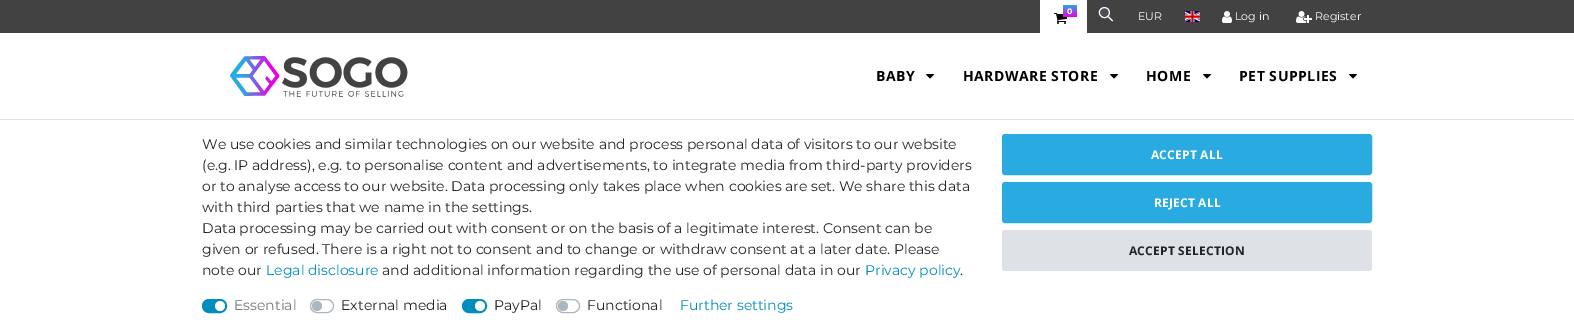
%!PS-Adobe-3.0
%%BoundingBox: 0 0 1574 330
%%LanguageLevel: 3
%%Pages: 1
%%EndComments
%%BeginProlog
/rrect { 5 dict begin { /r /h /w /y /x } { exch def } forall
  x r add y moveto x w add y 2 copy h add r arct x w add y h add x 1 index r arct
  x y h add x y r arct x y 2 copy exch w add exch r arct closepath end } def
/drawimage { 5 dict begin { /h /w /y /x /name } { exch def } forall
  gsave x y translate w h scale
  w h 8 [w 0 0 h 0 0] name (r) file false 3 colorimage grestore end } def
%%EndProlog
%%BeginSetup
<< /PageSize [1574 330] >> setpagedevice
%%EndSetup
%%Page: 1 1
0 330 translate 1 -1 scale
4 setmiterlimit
1 setgray
0 0 1574 330 rectfill
0.259 setgray
0 0 1574 33 rectfill
1 setgray
1040 0 47 33 rectfill
(images/1.raw) 1054 13 13 11 drawimage
gsave newpath 1063 5 moveto 1077 5 lineto 1077 17 lineto 1063 17 lineto closepath clip newpath
<< /ShadingType 2 /ColorSpace /DeviceRGB /Coords [1070 5 1070 17] /Extend [true true] /Function << /FunctionType 2 /Domain [0 1] /C0 [0.161 0.671 0.886] /C1 [0.906 0 0.902] /N 1 >> >> shfill grestore
newpath 1112 21 moveto 1111 20 1102 11.5 1102 11 curveto 1103 10.5 lineto 1113 20.5 lineto 1113 21 1112.5 21.5 1112 21 curveto closepath fill
0.286 0.314 0.341 setrgbcolor
newpath 1100.5 16.5 moveto 1095.5 11.5 1103 3.5 1108 9 curveto 1113.5 14 1105.5 21.5 1100.5 16.5 curveto closepath fill
1 setgray
newpath 1101 16 moveto 1096 11.5 1103 4.5 1108 9 curveto 1112.5 14 1105.5 21 1101 16 curveto closepath stroke
(images/2.raw) 1185 11 15 11 drawimage
(images/3.raw) 1222 11 10 12 drawimage
(images/4.raw) 1296 11 16 12 drawimage
(images/5.raw) 230 56 178 41 drawimage
(images/6.raw) 926 74 8 5 drawimage
(images/6.raw) 1110 74 8 5 drawimage
(images/6.raw) 1203 74 8 5 drawimage
(images/6.raw) 1349 74 8 5 drawimage
0.871 0.886 0.902 setrgbcolor
0 119 1574 1 rectfill
0 0.557 0.741 setrgbcolor
202.5 299.5 24 13 6.5 rrect gsave fill grestore
stroke
1 setgray
newpath 220 306 5 0 360 arc closepath fill
0.678 0.71 0.741 setrgbcolor
310.5 299.5 23 13 6.5 rrect stroke
newpath 317 306 5 0 360 arc closepath fill
0 0.557 0.741 setrgbcolor
462.5 299.5 24 13 6.5 rrect gsave fill grestore
stroke
1 setgray
newpath 480 306 5 0 360 arc closepath fill
0.678 0.71 0.741 setrgbcolor
556.5 299.5 23 13 6.5 rrect stroke
newpath 563 306 5 0 360 arc closepath fill
0.161 0.671 0.886 setrgbcolor
1003 135 368 39 2 rrect gsave fill grestore
2 setlinewidth
stroke
1003 183 368 39 2 rrect gsave fill grestore
stroke
0.871 0.886 0.902 setrgbcolor
1002 230 370 41 3 rrect fill
/Montserrat-Bold [8 0 0 -8 0 0] selectfont
1 setgray
1067 14 moveto (0) show
/Montserrat-Regular [11 0 0 -11 0 0] selectfont
1138 20 moveto (EUR) show
1235 20 moveto (Log in) show
1315 20 moveto (Register) show
/OpenSans-Bold [14 0 0 -14 0 0] selectfont
0 setgray
876 81 moveto 0.5 0 (BABY) ashow
963 81 moveto 0.5 0 (HARDWARE STORE) ashow
1146 81 moveto 0.5 0 (HOME) ashow
1239 81 moveto 0.5 0 (PET SUPPLIES) ashow
/Montserrat-Regular [14 0 0 -14 0 0] selectfont
0.129 0.145 0.161 setrgbcolor
202 149 moveto (We use cookies and similar technologies on our website and process personal data of visitors to our website) show
202 170 moveto (\(e.g. IP address\), e.g. to personalise content and advertisements, to integrate media from third-party providers) show
202 191 moveto (or to analyse access to our website. Data processing only takes place when cookies are set. We share this data) show
202 212 moveto (with third parties that we name in the settings.) show
202 233 moveto (Data processing may be carried out with consent or on the basis of a legitimate interest. Consent can be) show
202 254 moveto (given or refused. There is a right not to consent and to change or withdraw consent at a later date. Please) show
202 275 moveto (note our) show
0 0.557 0.741 setrgbcolor
266 275 moveto (Legal disclosure) show
0.129 0.145 0.161 setrgbcolor
382 275 moveto (and additional information regarding the use of personal data in our) show
0 0.557 0.741 setrgbcolor
865 275 moveto (Privacy policy) show
0.129 0.145 0.161 setrgbcolor
960 275 moveto (.) show
0.463 setgray
234 310 moveto (Essential) show
0.129 0.145 0.161 setrgbcolor
341 310 moveto (External media) show
494 310 moveto (PayPal) show
587 310 moveto (Functional) show
0 0.557 0.741 setrgbcolor
680 310 moveto (Further settings) show
/OpenSans-Bold [12 0 0 -12 0 0] selectfont
1 setgray
1151 159 moveto 0.2 0 (ACCEPT ALL) ashow
1154 207 moveto 0.2 0 (REJECT ALL) ashow
0.129 0.145 0.161 setrgbcolor
1129 255 moveto 0.2 0 (ACCEPT SELECTION) ashow
showpage
%%EOF
